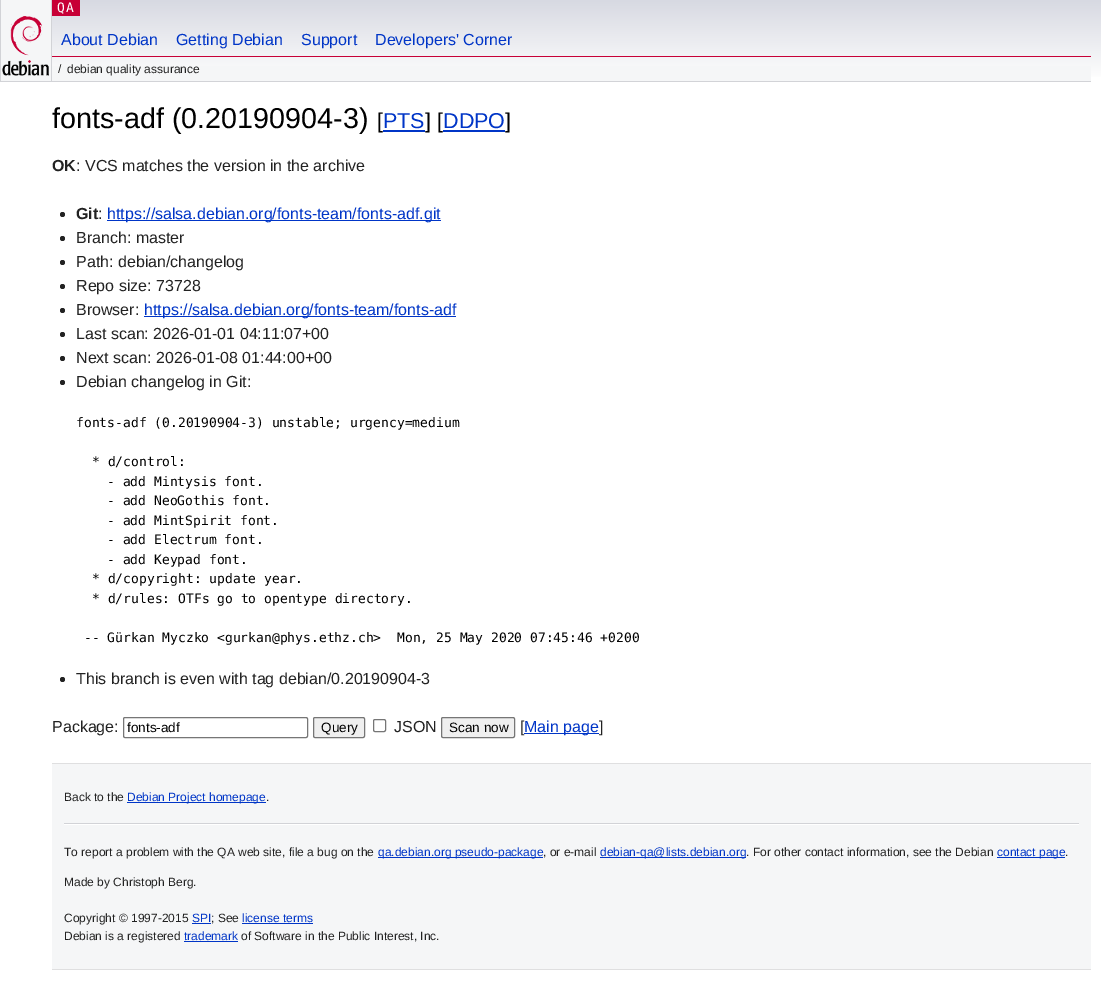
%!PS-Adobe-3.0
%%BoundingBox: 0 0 1101 989
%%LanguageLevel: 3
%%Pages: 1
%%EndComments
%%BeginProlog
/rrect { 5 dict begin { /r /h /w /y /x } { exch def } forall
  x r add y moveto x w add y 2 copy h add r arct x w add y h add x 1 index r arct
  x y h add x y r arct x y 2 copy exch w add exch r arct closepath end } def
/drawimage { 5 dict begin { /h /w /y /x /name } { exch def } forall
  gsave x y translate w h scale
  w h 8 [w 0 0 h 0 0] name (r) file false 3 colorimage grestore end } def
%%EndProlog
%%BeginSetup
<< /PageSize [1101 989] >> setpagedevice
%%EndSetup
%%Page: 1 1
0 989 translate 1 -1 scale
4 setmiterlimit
1 setgray
0 0 1101 989 rectfill
gsave newpath 52 0 moveto 1101 0 lineto 1101 77 lineto 52 77 lineto closepath clip newpath
<< /ShadingType 2 /ColorSpace /DeviceRGB /Coords [551 0 551 82] /Extend [true true] /Function << /FunctionType 2 /Domain [0 1] /C0 [0.843 0.851 0.886] /C1 [1 1 1] /N 1 >> >> shfill grestore
0.961 0.965 0.969 setrgbcolor
1 0 50 81 rectfill
0.824 0.827 0.843 setrgbcolor
51 0 1 82 rectfill
0 81 52 1 rectfill
0 0 1 82 rectfill
(images/1.raw) 2 16 47 60 drawimage
0.78 0 0.212 setrgbcolor
52 0 28 16 rectfill
52 56 1039 1 rectfill
0.961 0.965 0.969 setrgbcolor
52 66 1039 15 rectfill
0.824 0.827 0.843 setrgbcolor
52 81 1039 1 rectfill
0 0.208 0.78 setrgbcolor
383 130 42 2 rectfill
443 130 62 2 rectfill
0.133 setgray
newpath 62.5 214.5 2.5 0 360 arc closepath fill
0 0.208 0.78 setrgbcolor
107 220 334 1 rectfill
0.133 setgray
newpath 62.5 238.5 2.5 0 360 arc closepath fill
newpath 62.5 262.5 2.5 0 360 arc closepath fill
newpath 62.5 286.5 2.5 0 360 arc closepath fill
newpath 62.5 310.5 2.5 0 360 arc closepath fill
0 0.208 0.78 setrgbcolor
144 316 312 1 rectfill
0.133 setgray
newpath 62.5 334.5 2.5 0 360 arc closepath fill
newpath 62.5 358.5 2.5 0 360 arc closepath fill
newpath 62.5 382.5 2.5 0 360 arc closepath fill
newpath 62.5 679.5 2.5 0 360 arc closepath fill
0.463 setgray
123.5 717.5 184 20 1.5 rrect stroke
0.937 setgray
313.5 717.5 51 20 1.5 rrect gsave fill grestore
0.463 setgray
stroke
373.5 719.5 12 12 1.5 rrect stroke
0.937 setgray
441.5 717.5 73 20 1.5 rrect gsave fill grestore
0.463 setgray
stroke
0.961 0.965 0.969 setrgbcolor
52 764 1039 205 rectfill
0.875 0.875 0.878 setrgbcolor
52 763 1039 1 rectfill
52 969 1039 1 rectfill
0 0.208 0.78 setrgbcolor
127 802 139 1 rectfill
0.824 0.827 0.843 setrgbcolor
64 823 1015 1 rectfill
1 setgray
64 824 1015 1 rectfill
0 0.208 0.78 setrgbcolor
378 857 165 1 rectfill
600 857 146 1 rectfill
997 857 68 1 rectfill
192 923 19 1 rectfill
242 923 71 1 rectfill
184 941 54 1 rectfill
/DejaVuSansMono-Regular [13 0 0 -13 0 0] selectfont
1 setgray
57 12 moveto 1 0 (QA) ashow
/LiberationSans-Regular [16 0 0 -16 0 0] selectfont
0 0.208 0.78 setrgbcolor
61 45 moveto (About Debian) show
176 45 moveto (Getting Debian) show
301 45 moveto (Support) show
375 45 moveto (Developers' Corner) show
/LiberationSans-Regular [12 0 0 -12 0 0] selectfont
0.133 setgray
58 73 moveto (/) show
67 73 moveto (debian quality assurance) show
/LiberationSans-Regular [28.75 0 0 -28.75 0 0] selectfont
0 setgray
52 128 moveto (fonts-adf \(0.20190904-3\)) show
/LiberationSans-Regular [21.5 0 0 -21.5 0 0] selectfont
377 128 moveto ([) show
0 0.208 0.78 setrgbcolor
383 128 moveto (PTS) show
0 setgray
425 128 moveto (] [) show
0 0.208 0.78 setrgbcolor
443 128 moveto (DDPO) show
0 setgray
505 128 moveto (]) show
/LiberationSans-Bold [16 0 0 -16 0 0] selectfont
0.133 setgray
52 171 moveto (OK) show
/LiberationSans-Regular [16 0 0 -16 0 0] selectfont
76 171 moveto (: VCS matches the version in the archive) show
/LiberationSans-Bold [16 0 0 -16 0 0] selectfont
76 219 moveto (Git) show
/LiberationSans-Regular [16 0 0 -16 0 0] selectfont
98 219 moveto (:) show
0 0.208 0.78 setrgbcolor
107 219 moveto (https://salsa.debian.org/fonts-team/fonts-adf.git) show
0.133 setgray
76 243 moveto (Branch: master) show
76 267 moveto (Path: debian/changelog) show
76 291 moveto (Repo size: 73728) show
76 315 moveto (Browser:) show
0 0.208 0.78 setrgbcolor
144 315 moveto (https://salsa.debian.org/fonts-team/fonts-adf) show
0.133 setgray
76 339 moveto (Last scan: 2026-01-01 04:11:07+00) show
76 363 moveto (Next scan: 2026-01-08 01:44:00+00) show
76 387 moveto (Debian changelog in Git:) show
/DejaVuSansMono-Regular [13 0 0 -13 0 0] selectfont
0 setgray
76 427 moveto (fonts-adf \(0.20190904-3\) unstable; urgency=medium) show
92 466 moveto (* d/control:) show
107 486 moveto (- add Mintysis font.) show
107 505 moveto (- add NeoGothis font.) show
107 525 moveto (- add MintSpirit font.) show
107 544 moveto (- add Electrum font.) show
107 564 moveto (- add Keypad font.) show
92 583 moveto (* d/copyright: update year.) show
92 603 moveto (* d/rules: OTFs go to opentype directory.) show
84 642 moveto (-- Gürkan Myczko <gurkan@phys.ethz.ch>  Mon, 25 May 2020 07:45:46 +0200) show
/LiberationSans-Regular [16 0 0 -16 0 0] selectfont
0.133 setgray
76 684 moveto (This branch is even with tag debian/0.20190904-3) show
52 732 moveto (Package:) show
/LiberationSans-Regular [13.5 0 0 -13.5 0 0] selectfont
0 setgray
127 732 moveto (fonts-adf) show
321 732 moveto (Query) show
/LiberationSans-Regular [16 0 0 -16 0 0] selectfont
0.133 setgray
394 732 moveto (JSON) show
/LiberationSans-Regular [13.5 0 0 -13.5 0 0] selectfont
0 setgray
449 732 moveto (Scan now) show
/LiberationSans-Regular [16 0 0 -16 0 0] selectfont
0.133 setgray
520 732 moveto ([) show
0 0.208 0.78 setrgbcolor
524 733 75 1 rectfill
524 732 moveto (Main page) show
0.133 setgray
599 732 moveto (]) show
/LiberationSans-Regular [12 0 0 -12 0 0] selectfont
64 801 moveto (Back to the) show
0 0.208 0.78 setrgbcolor
127 801 moveto (Debian Project homepage) show
0.133 setgray
266 801 moveto (.) show
64 856 moveto (To report a problem with the QA web site, file a bug on the) show
0 0.208 0.78 setrgbcolor
378 856 moveto (qa.debian.org pseudo-package) show
0.133 setgray
543 856 moveto (, or e-mail) show
0 0.208 0.78 setrgbcolor
600 856 moveto (debian-qa@lists.debian.org) show
0.133 setgray
746 856 moveto (. For other contact information, see the Debian) show
0 0.208 0.78 setrgbcolor
997 856 moveto (contact page) show
0.133 setgray
1065 856 moveto (.) show
64 886 moveto (Made by Christoph Berg.) show
64 922 moveto (Copyright © 1997-2015) show
0 0.208 0.78 setrgbcolor
192 922 moveto (SPI) show
0.133 setgray
211 922 moveto (; See) show
0 0.208 0.78 setrgbcolor
242 922 moveto (license terms) show
0.133 setgray
64 940 moveto (Debian is a registered) show
0 0.208 0.78 setrgbcolor
184 940 moveto (trademark) show
0.133 setgray
241 940 moveto (of Software in the Public Interest, Inc.) show
showpage
%%EOF
